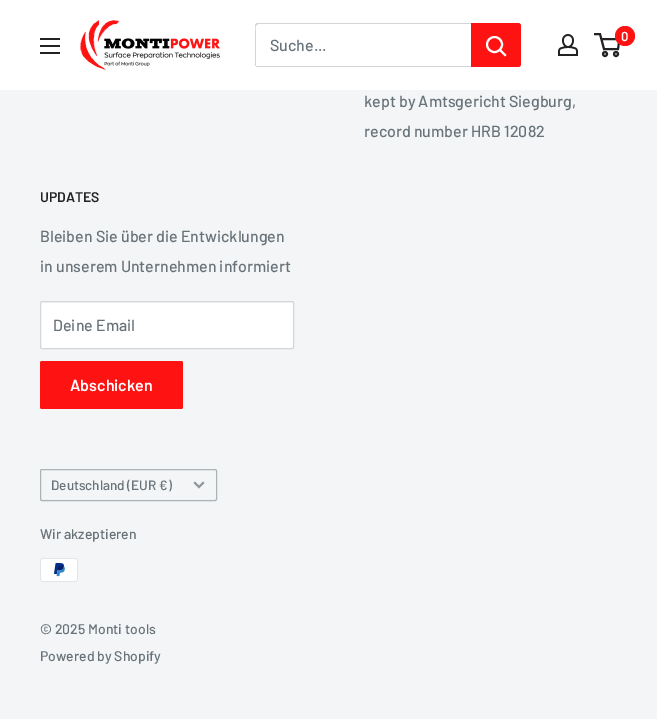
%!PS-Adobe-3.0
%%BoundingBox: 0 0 657 719
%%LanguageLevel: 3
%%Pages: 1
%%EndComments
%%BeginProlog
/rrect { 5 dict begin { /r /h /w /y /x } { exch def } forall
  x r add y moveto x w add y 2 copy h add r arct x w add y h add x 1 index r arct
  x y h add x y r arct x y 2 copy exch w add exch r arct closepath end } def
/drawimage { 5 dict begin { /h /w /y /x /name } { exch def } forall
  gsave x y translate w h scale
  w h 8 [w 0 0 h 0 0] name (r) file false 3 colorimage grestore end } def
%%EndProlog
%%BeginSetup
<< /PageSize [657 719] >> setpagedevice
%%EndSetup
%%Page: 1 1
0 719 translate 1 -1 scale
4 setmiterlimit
0.953 0.961 0.965 setrgbcolor
0 0 657 719 rectfill
1 setgray
0 0 657 90 rectfill
(images/1.raw) 80 20 140 50 drawimage
(images/2.raw) 558 34 20 22 drawimage
0.137 setgray
2 setlinewidth
newpath 605 54 2 0 360 arc closepath stroke
newpath 616 54 2 0 360 arc closepath stroke
newpath 601.5 39 moveto 619.5 39 lineto 618 49 lineto 604 49 lineto 600 34 lineto 594 34 lineto stroke
1 0.071 0.071 setrgbcolor
newpath 625 36 10 0 360 arc closepath fill
(images/3.raw) 40 38 20 16 drawimage
0.82 0.835 0.843 setrgbcolor
newpath 256 66 moveto 256 67 257 67 258 67 curveto 518 67 lineto 520 67 521 66 521 64 curveto 521 26 lineto 521 25 521 24 520 24 curveto 520 57 lineto 520 59 522 66 517 66 curveto closepath fill
newpath 259 24 moveto 520 24 lineto 520 23 519 23 518 23 curveto 258 23 lineto 256 23 255 24 255 26 curveto 255 64 lineto 255 65 255 66 256 66 curveto 256 33 lineto 256 31 254 24 259 24 curveto closepath fill
1 0.071 0.071 setrgbcolor
newpath 471 23 moveto 518 23 lineto 519.5 23 521 24.5 521 26 curveto 521 64 lineto 521 65.5 519.5 67 518 67 curveto 471 67 lineto closepath fill
1 setgray
2 setlinecap
newpath 505 55 moveto 500 50 lineto stroke
0 setlinecap
newpath 494.5 44.5 7.5 0 360 arc closepath stroke
40 301 254 48 2 rrect fill
0.973 setgray
newpath 42 303 moveto 292 303 lineto 293 303 293 303 293 304 curveto 293 303 293 302 292 302 curveto 41 302 lineto 41 304 lineto 41 303 41 303 42 303 curveto closepath fill
0.831 0.839 0.847 setrgbcolor
1 setlinewidth
40.5 301.5 253 47 1.5 rrect stroke
1 0.071 0.071 setrgbcolor
40 361 143 48 2 rrect fill
0.933 0.941 0.945 setrgbcolor
newpath 41 498 moveto 41 499 41 500 42 500 curveto 216 500 lineto 216 498 lineto 216 499 lineto 128 499 lineto 41 499 lineto closepath fill
0.678 0.706 0.722 setrgbcolor
40.5 469.5 176 31 1.5 rrect stroke
0.569 0.6 0.624 setrgbcolor
2 setlinewidth
2 setlinecap
newpath 203 483 moveto 199 487 lineto 195 483 lineto stroke
(images/4.raw) 40 558 38 24 drawimage
/Barlow-SemiBold [13 0 0 -13 0 0] selectfont
1 setgray
621 41 moveto (0) show
/Barlow-Medium [16 0 0 -16 0 0] selectfont
0.404 0.447 0.475 setrgbcolor
270 51 moveto (Suche...) show
364 107 moveto (kept by Amtsgericht Siegburg,) show
364 137 moveto (record number HRB 12082) show
/Barlow-SemiBold [14 0 0 -14 0 0] selectfont
0.137 setgray
40 202 moveto (UPDATES) show
/Barlow-Medium [16 0 0 -16 0 0] selectfont
0.404 0.447 0.475 setrgbcolor
40 242 moveto (Bleiben Sie über die Entwicklungen) show
40 272 moveto (in unserem Unternehmen informiert) show
53 331 moveto (Deine Email) show
/Barlow-SemiBold [16 0 0 -16 0 0] selectfont
1 setgray
70 391 moveto (Abschicken) show
/Barlow-Medium [13.5 0 0 -13.5 0 0] selectfont
0.404 0.447 0.475 setrgbcolor
51 490 moveto (Deutschland \(EUR €\)) show
/Barlow-Medium [14 0 0 -14 0 0] selectfont
40 539 moveto (Wir akzeptieren) show
40 634 moveto (© 2025 Monti tools) show
40 661 moveto (Powered by Shopify) show
showpage
%%EOF
